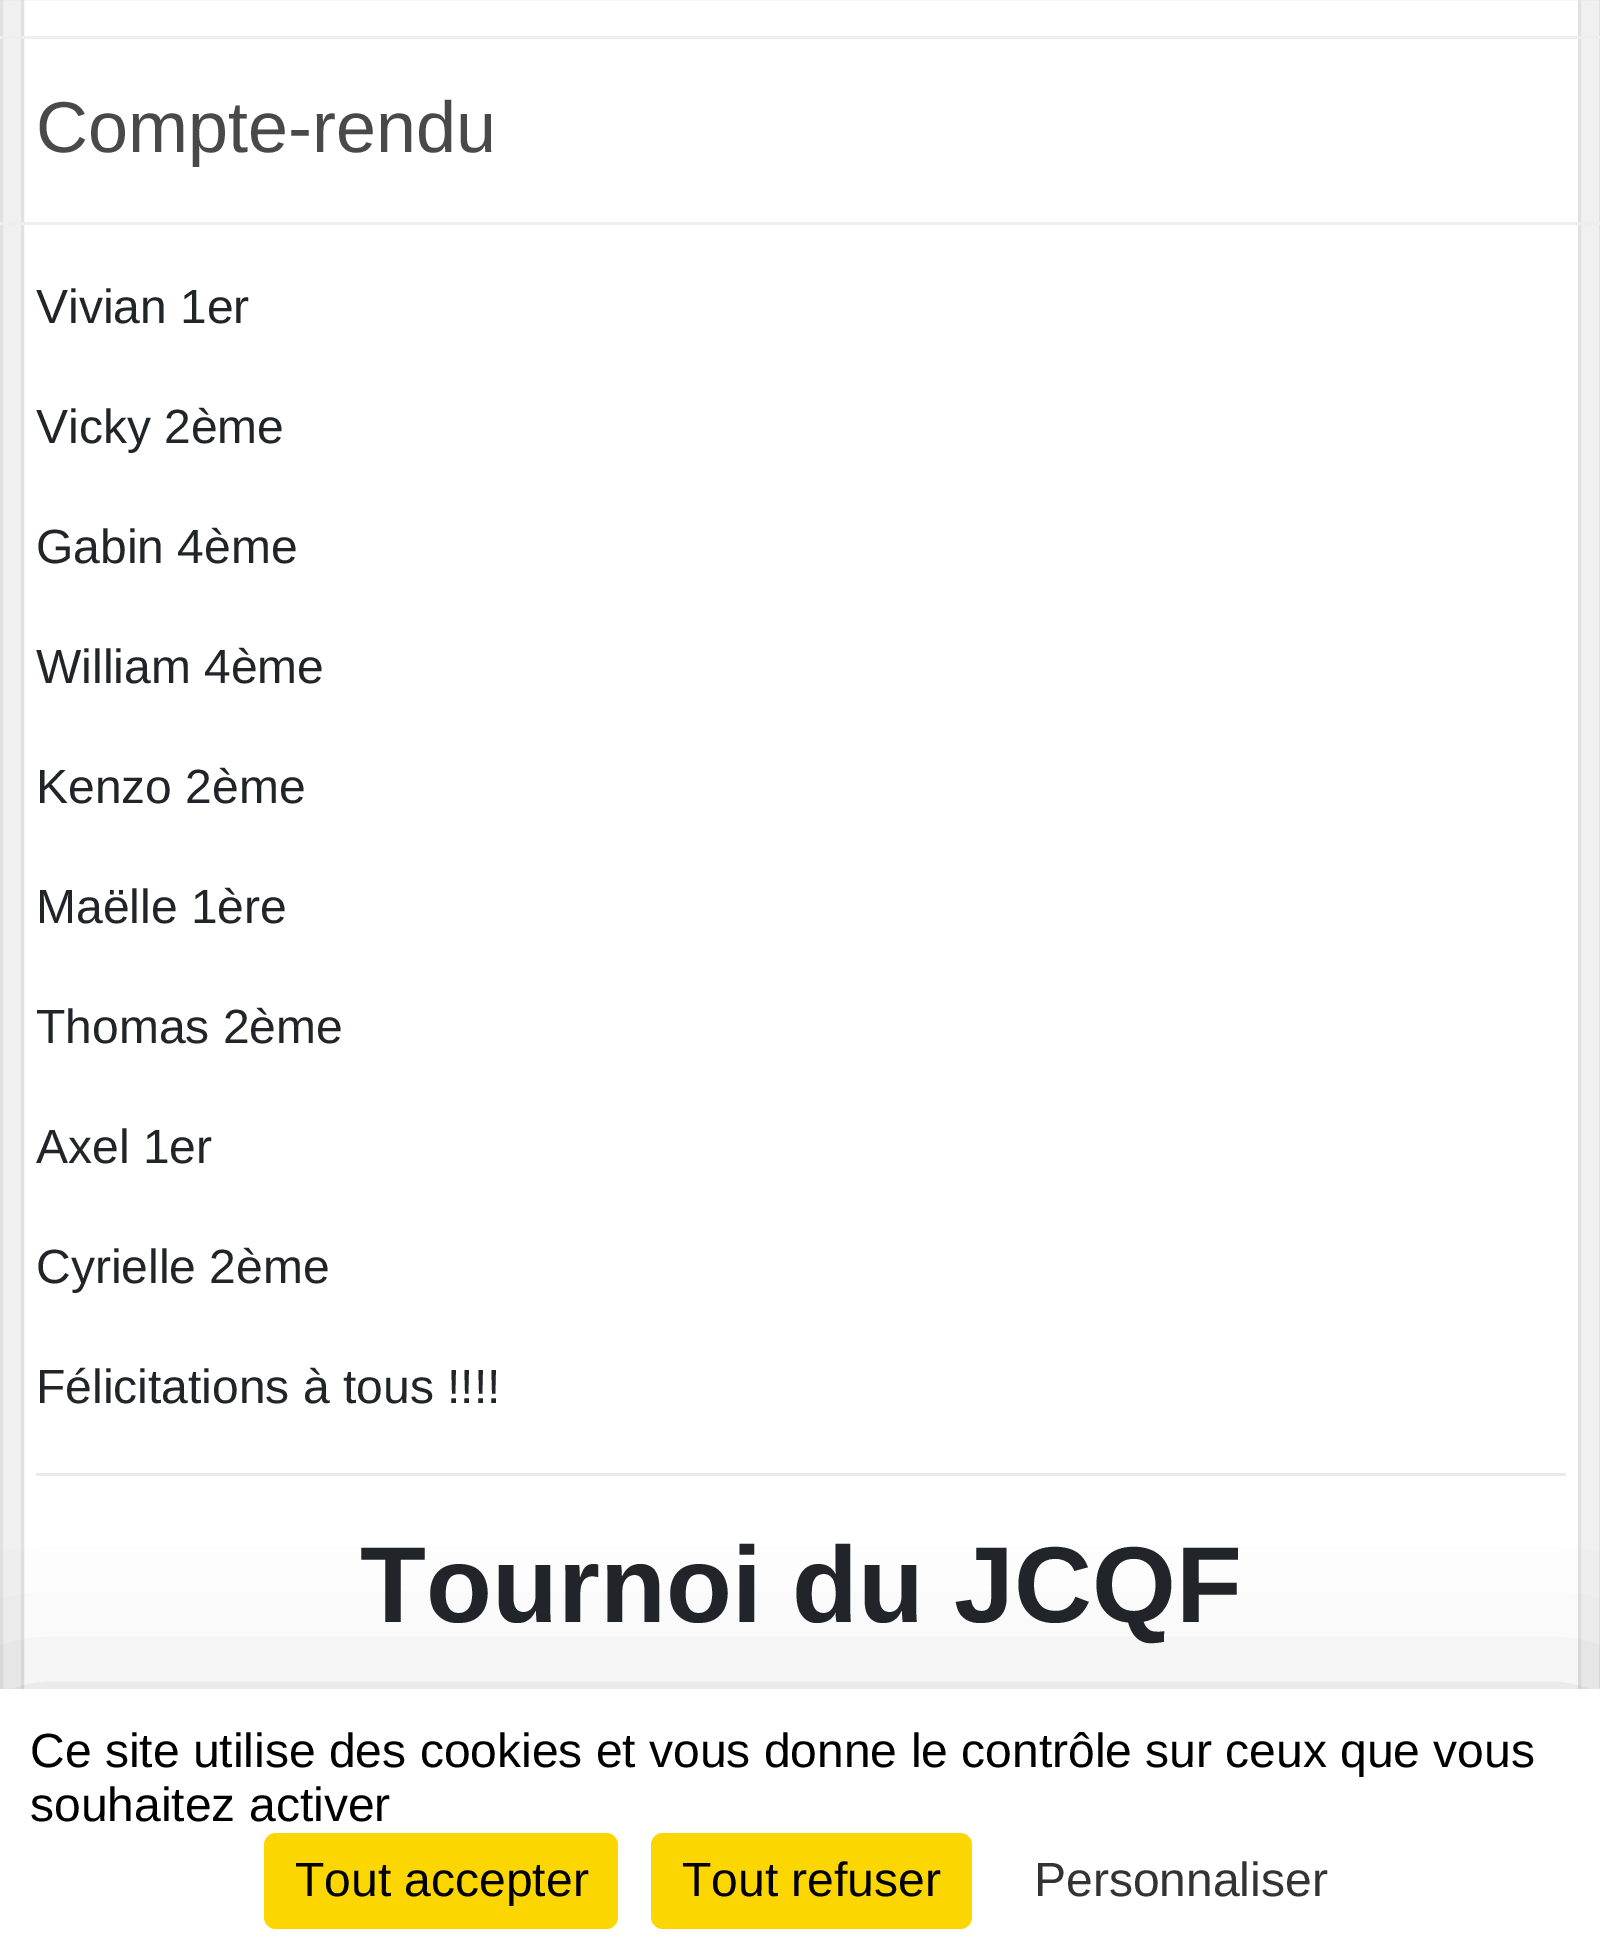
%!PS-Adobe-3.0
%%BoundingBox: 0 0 1600 1959
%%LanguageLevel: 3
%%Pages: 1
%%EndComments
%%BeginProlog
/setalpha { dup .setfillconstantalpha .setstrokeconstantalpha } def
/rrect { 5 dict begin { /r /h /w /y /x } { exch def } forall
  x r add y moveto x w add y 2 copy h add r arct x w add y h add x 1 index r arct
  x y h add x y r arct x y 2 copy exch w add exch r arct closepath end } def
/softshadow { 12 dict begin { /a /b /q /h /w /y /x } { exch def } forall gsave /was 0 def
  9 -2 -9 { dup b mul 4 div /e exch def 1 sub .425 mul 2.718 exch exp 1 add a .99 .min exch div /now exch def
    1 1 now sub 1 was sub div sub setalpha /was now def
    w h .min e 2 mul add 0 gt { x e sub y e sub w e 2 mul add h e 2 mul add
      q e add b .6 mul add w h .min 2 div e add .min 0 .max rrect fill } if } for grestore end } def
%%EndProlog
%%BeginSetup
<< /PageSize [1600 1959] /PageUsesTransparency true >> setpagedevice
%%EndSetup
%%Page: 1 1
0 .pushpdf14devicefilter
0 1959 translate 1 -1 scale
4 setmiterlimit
0.941 setgray
0 0 1600 1959 rectfill
0.882 setgray
3 setlinewidth
1.5 -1.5 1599 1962 rectstroke
1 setgray
24 0 1554 1689 rectfill
0.882 setgray
22.5 -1.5 1557 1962 rectstroke
0.933 setgray
0 36 1600 3 rectfill
0 222 1600 3 rectfill
0.918 setgray
36 1473 1530 3 rectfill
0 setgray
0 1749 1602 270 0 90 0.25 softshadow
1 setgray
0 1689 1600 270 rectfill
0.984 0.839 0 setrgbcolor
264 1833 354 96 12 rrect fill
651 1833 321 96 12 rrect fill
/LiberationSans-Regular [72 0 0 -72 0 0] selectfont
0.286 setgray
36 152 moveto (Compte-rendu) show
/LiberationSans-Regular [48 0 0 -48 0 0] selectfont
0.129 0.145 0.161 setrgbcolor
36 323 moveto (Vivian 1er) show
36 443 moveto (Vicky 2ème) show
36 563 moveto (Gabin 4ème) show
36 683 moveto (William 4ème) show
36 803 moveto (Kenzo 2ème) show
36 923 moveto (Maëlle 1ère) show
36 1043 moveto (Thomas 2ème) show
36 1163 moveto (Axel 1er) show
36 1283 moveto (Cyrielle 2ème) show
36 1403 moveto (Félicitations à tous !!!!) show
/LiberationSans-Bold [108 0 0 -108 0 0] selectfont
360 1622 moveto (Tournoi du JCQF) show
/LiberationSans-Regular [48 0 0 -48 0 0] selectfont
0 setgray
30 1767 moveto (Ce site utilise des cookies et vous donne le contrôle sur ceux que vous) show
30 1821 moveto (souhaitez activer) show
295 1896 moveto (Tout accepter) show
682 1896 moveto (Tout refuser) show
0.2 setgray
1034 1896 moveto (Personnaliser) show
.poppdf14devicefilter showpage
%%EOF
